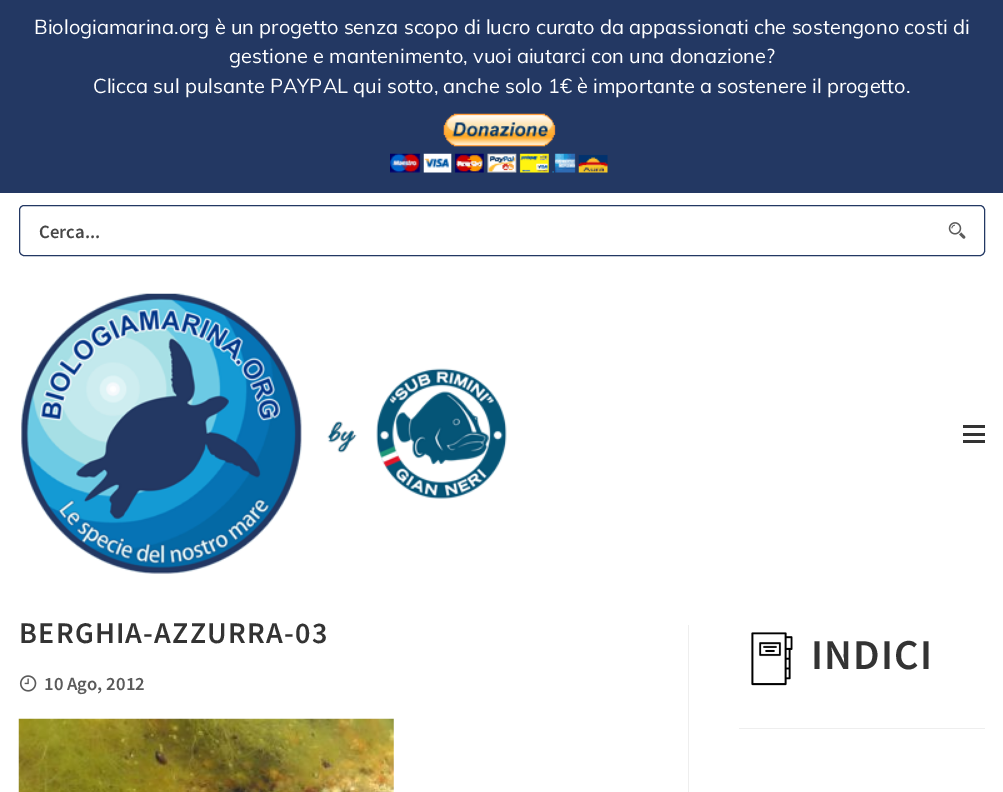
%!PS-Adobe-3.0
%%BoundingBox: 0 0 1003 792
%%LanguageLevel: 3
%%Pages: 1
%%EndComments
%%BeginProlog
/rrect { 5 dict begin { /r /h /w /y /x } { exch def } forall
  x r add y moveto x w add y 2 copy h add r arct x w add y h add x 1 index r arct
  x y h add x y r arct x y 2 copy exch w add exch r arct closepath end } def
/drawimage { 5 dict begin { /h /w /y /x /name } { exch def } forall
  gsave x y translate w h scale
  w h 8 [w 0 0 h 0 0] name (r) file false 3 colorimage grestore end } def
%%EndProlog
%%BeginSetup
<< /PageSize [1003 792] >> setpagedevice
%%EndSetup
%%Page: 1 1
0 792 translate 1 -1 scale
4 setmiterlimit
1 setgray
0 0 1003 792 rectfill
0.137 0.22 0.388 setrgbcolor
0 0 1003 193 rectfill
(images/1.raw) 390 113 218 60 drawimage
19.5 205.5 965 50 4.5 rrect stroke
(images/2.raw) 948 222 18 17 drawimage
(images/3.raw) 21 293 486 281 drawimage
0.2 setgray
963 425 22 3 rectfill
963 433 22 3 rectfill
963 440 22 3 rectfill
(images/4.raw) 19 675 18 17 drawimage
(images/5.raw) 18 718 376 74 drawimage
0.933 setgray
688 625 1 167 rectfill
(images/6.raw) 751 632 42 54 drawimage
739 728 246 1 rectfill
/Muli-Regular [20 0 0 -20 0 0] selectfont
1 setgray
34 34 moveto (Biologiamarina.org è un progetto senza scopo di lucro curato da appassionati che sostengono costi di) show
229 63 moveto (gestione e mantenimento, vuoi aiutarci con una donazione?) show
93 93 moveto (Clicca sul pulsante PAYPAL qui sotto, anche solo 1€ è importante a sostenere il progetto.) show
/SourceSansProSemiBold-SemiBold [18.75 0 0 -18.75 0 0] selectfont
0.278 setgray
39 238 moveto (Cerca...) show
/SourceSansProSemiBold-SemiBold [30 0 0 -30 0 0] selectfont
0.2 setgray
19 643 moveto 1.25 0 (BERGHIA-AZZURRA-03) ashow
/SourceSansProSemiBold-SemiBold [18.75 0 0 -18.75 0 0] selectfont
0.357 setgray
44 690 moveto (10 Ago, 2012) show
/SourceSansProSemiBold-SemiBold [42.5 0 0 -42.5 0 0] selectfont
0.2 setgray
811 669 moveto 1.25 0 (INDICI) ashow
showpage
%%EOF
